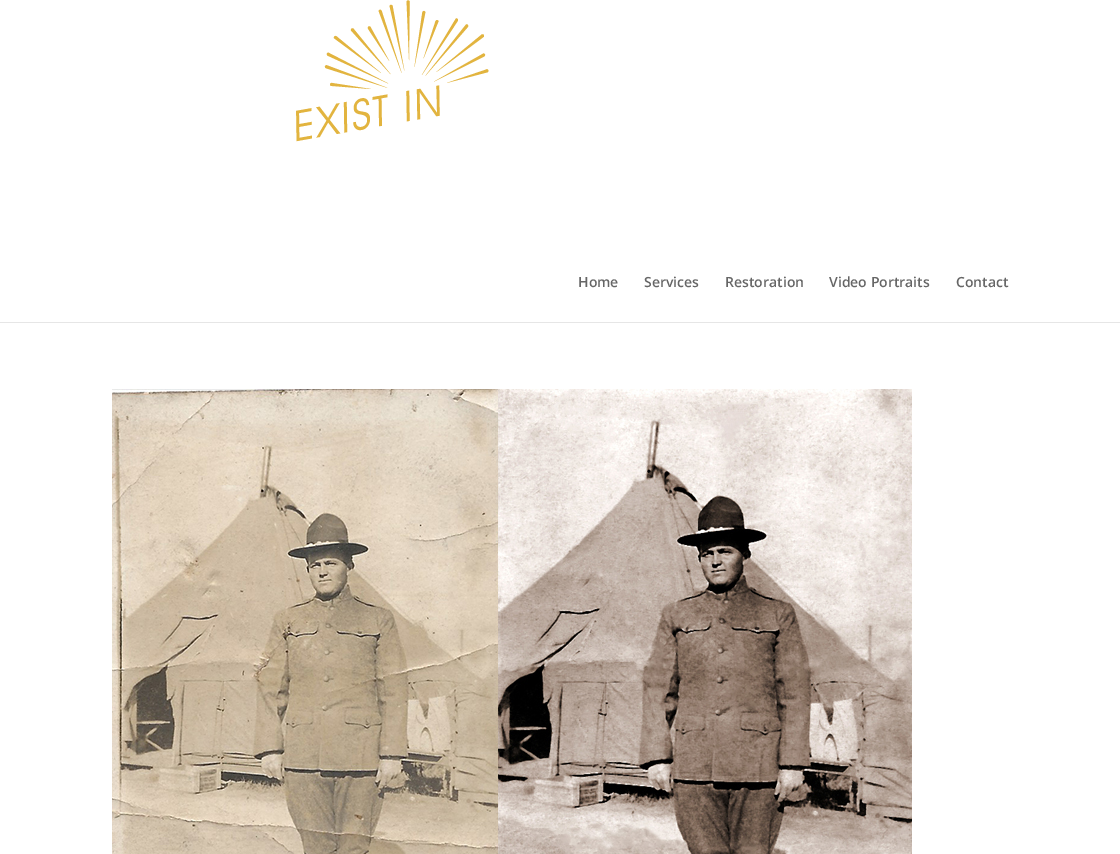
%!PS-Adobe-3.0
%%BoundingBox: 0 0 1120 854
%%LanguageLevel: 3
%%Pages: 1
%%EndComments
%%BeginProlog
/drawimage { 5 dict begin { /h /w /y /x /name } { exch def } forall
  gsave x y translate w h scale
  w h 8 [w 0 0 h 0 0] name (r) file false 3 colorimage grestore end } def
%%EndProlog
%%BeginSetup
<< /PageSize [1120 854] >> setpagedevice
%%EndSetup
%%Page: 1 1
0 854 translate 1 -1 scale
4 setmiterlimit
1 setgray
0 0 1120 854 rectfill
0.902 setgray
0 322 1120 1 rectfill
(images/1.raw) 296 0 193 142 drawimage
(images/2.raw) 112 389 800 465 drawimage
/OpenSans-SemiBold [14 0 0 -14 0 0] selectfont
0.4 setgray
578 287 moveto (Home) show
644 287 moveto (Services) show
725 287 moveto (Restoration) show
829 287 moveto (Video Portraits) show
956 287 moveto (Contact) show
showpage
%%EOF
